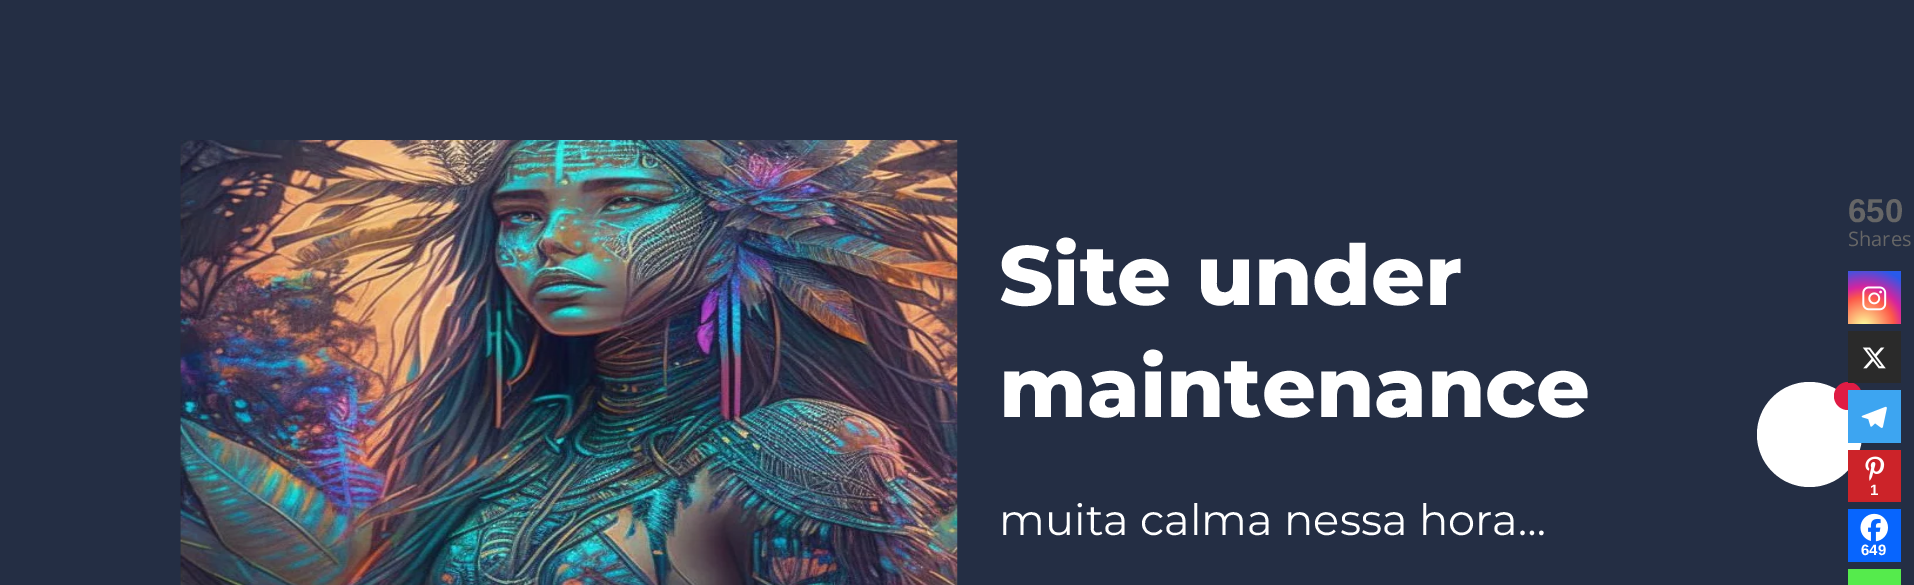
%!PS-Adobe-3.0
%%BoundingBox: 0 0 1914 585
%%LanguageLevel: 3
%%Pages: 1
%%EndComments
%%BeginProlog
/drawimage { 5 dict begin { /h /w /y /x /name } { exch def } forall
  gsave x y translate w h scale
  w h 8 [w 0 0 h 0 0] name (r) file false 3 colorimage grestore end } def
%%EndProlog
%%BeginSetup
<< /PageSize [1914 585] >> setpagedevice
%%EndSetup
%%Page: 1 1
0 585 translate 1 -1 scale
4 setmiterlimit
0.141 0.18 0.267 setrgbcolor
0 0 1914 585 rectfill
(images/1.raw) 180 140 778 445 drawimage
1 setgray
newpath 1809.5 434.5 52.5 0 360 arc closepath fill
0.875 0.11 0.267 setrgbcolor
newpath 1848 396 14 0 360 arc closepath fill
gsave newpath 1848 271 moveto 1901 271 lineto 1901 324 lineto 1848 324 lineto closepath clip newpath 1864 327 translate 67 67 scale
<< /ShadingType 3 /ColorSpace /DeviceRGB /Coords [0 0 0 0 0 1] /Extend [true true] /Function << /FunctionType 3 /Domain [0 1] /Functions [<< /FunctionType 2 /Domain [0 1] /C0 [0.992 0.957 0.592] /C1 [0.992 0.957 0.592] /N 1 >> << /FunctionType 2 /Domain [0 1] /C0 [0.992 0.957 0.592] /C1 [0.992 0.349 0.286] /N 1 >> << /FunctionType 2 /Domain [0 1] /C0 [0.992 0.349 0.286] /C1 [0.839 0.141 0.624] /N 1 >> << /FunctionType 2 /Domain [0 1] /C0 [0.839 0.141 0.624] /C1 [0.157 0.353 0.922] /N 1 >> << /FunctionType 2 /Domain [0 1] /C0 [0.157 0.353 0.922] /C1 [0.157 0.353 0.922] /N 1 >>] /Bounds [0.05 0.45 0.6 0.9] /Encode [0 1 0 1 0 1 0 1 0 1] >> >> shfill grestore
(images/2.raw) 1862 286 25 25 drawimage
0.165 setgray
1848 331 53 52 rectfill
(images/3.raw) 1862 347 24 22 drawimage
0.239 0.647 0.945 setrgbcolor
1848 390 53 53 rectfill
(images/4.raw) 1861 406 26 22 drawimage
0.8 0.137 0.161 setrgbcolor
1848 450 53 52 rectfill
(images/5.raw) 1865 456 20 25 drawimage
0.027 0.396 0.996 setrgbcolor
1848 509 53 53 rectfill
(images/6.raw) 1860 513 28 29 drawimage
0.333 0.922 0.298 setrgbcolor
1848 569 53 16 rectfill
/Montserrat-ExtraBold [84 0 0 -84 0 0] selectfont
1 setgray
999 305 moveto (Site under) show
999 417 moveto (maintenance) show
/Montserrat-Regular [43.25 0 0 -43.25 0 0] selectfont
999 535 moveto (muita calma nessa hora…) show
/LiberationSans-Bold [33 0 0 -33 0 0] selectfont
0.4 setgray
1848 222 moveto (650) show
/OpenSans-Regular [20 0 0 -20 0 0] selectfont
1848 246 moveto (Shares) show
/LiberationSans-Bold [15 0 0 -15 0 0] selectfont
1 setgray
1870 495 moveto (1) show
1861 555 moveto (649) show
showpage
%%EOF
